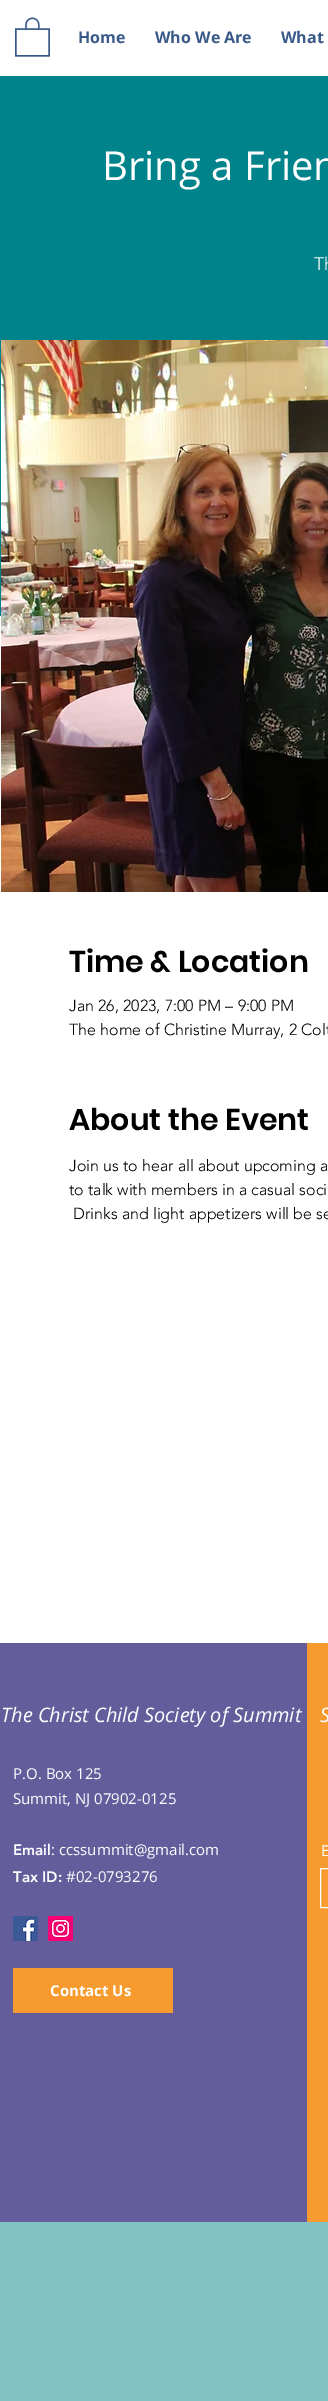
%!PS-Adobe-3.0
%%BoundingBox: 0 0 328 2401
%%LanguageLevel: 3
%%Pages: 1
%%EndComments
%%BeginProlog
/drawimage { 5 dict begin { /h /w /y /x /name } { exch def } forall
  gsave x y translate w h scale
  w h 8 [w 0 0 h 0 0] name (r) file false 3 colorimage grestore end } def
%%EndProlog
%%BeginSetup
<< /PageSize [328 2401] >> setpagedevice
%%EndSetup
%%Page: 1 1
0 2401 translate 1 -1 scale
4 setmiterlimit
0.514 0.757 0.769 setrgbcolor
0 0 328 2401 rectfill
1 setgray
0 0 328 76 rectfill
(images/1.raw) 15 17 35 40 drawimage
0 0.514 0.541 setrgbcolor
0 76 328 540 rectfill
1 setgray
0 616 328 1027 rectfill
(images/2.raw) 1 340 327 552 drawimage
0.392 0.365 0.608 setrgbcolor
0 1643 307 579 rectfill
(images/3.raw) 13 1916 25 25 drawimage
(images/4.raw) 48 1916 25 25 drawimage
0.969 0.608 0.184 setrgbcolor
13 1968 160 45 rectfill
307 1643 21 579 rectfill
1 setgray
320.5 1868.5 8 39 rectstroke
/OpenSans-Bold [16 0 0 -16 0 0] selectfont
0.22 0.349 0.533 setrgbcolor
78 43 moveto (Home) show
155 43 moveto (Who We Are) show
281 43 moveto (What) show
/OpenSans-Regular [40 0 0 -40 0 0] selectfont
1 setgray
102 180 moveto (Bring a Frien) show
/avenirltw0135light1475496-Light [18 0 0 -18 0 0] selectfont
314 270 moveto (Th) show
/Poppins-SemiBold [30 0 0 -30 0 0] selectfont
0 setgray
69 972 moveto (Time & Location) show
/avenirltw0135light1475496-Light [16 0 0 -16 0 0] selectfont
69 1011 moveto (Jan 26, 2023, 7:00 PM – 9:00 PM) show
69 1035 moveto (The home of Christine Murray, 2 Colt) show
/Poppins-SemiBold [30 0 0 -30 0 0] selectfont
69 1130 moveto (About the Event) show
/avenirltw0135light1475496-Light [16 0 0 -16 0 0] selectfont
69 1171 moveto (Join us to hear all about upcoming a) show
69 1195 moveto (to talk with members in a casual soci) show
73 1219 moveto (Drinks and light appetizers will be se) show
/OpenSans-Italic [20 0 0 -20 0 0] selectfont
1 setgray
1 1722 moveto (The Christ Child Society of Summit) show
/OpenSans-Regular [15 0 0 -15 0 0] selectfont
13 1779 moveto (P.O. Box 125) show
13 1804 moveto (Summit, NJ 07902-0125) show
/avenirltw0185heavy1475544-Black [15 0 0 -15 0 0] selectfont
13 1855 moveto (Email) show
/OpenSans-Regular [15 0 0 -15 0 0] selectfont
51 1855 moveto (: ccssummit@gmail.com) show
/avenirltw0185heavy1475544-Black [15 0 0 -15 0 0] selectfont
13 1882 moveto (Tax ID:) show
/OpenSans-Regular [15 0 0 -15 0 0] selectfont
66 1882 moveto (#02-0793276) show
/OpenSans-Bold [15 0 0 -15 0 0] selectfont
50 1996 moveto (Contact Us) show
/OpenSans-Italic [20 0 0 -20 0 0] selectfont
320 1722 moveto (S) show
/OpenSans-Regular [15 0 0 -15 0 0] selectfont
321 1856 moveto (E) show
showpage
%%EOF
